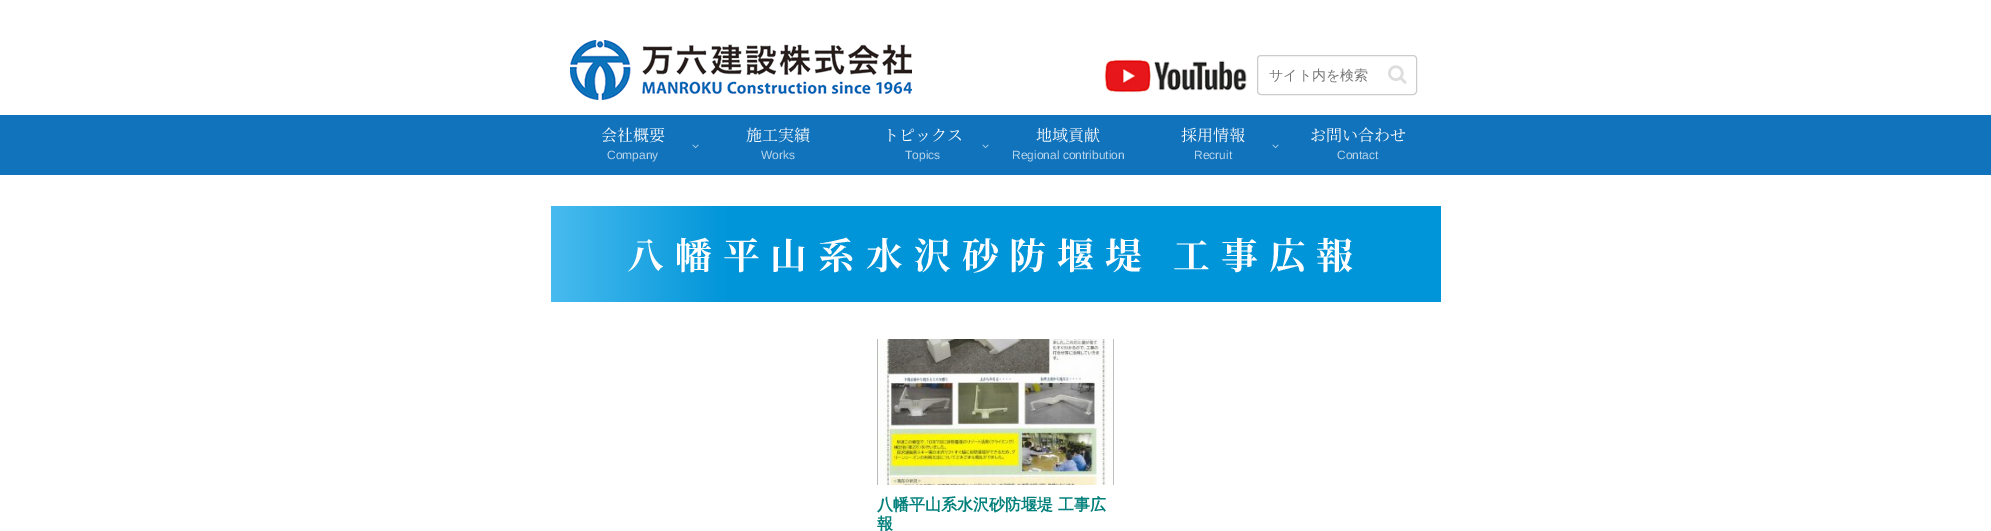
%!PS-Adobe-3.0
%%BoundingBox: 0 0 1991 531
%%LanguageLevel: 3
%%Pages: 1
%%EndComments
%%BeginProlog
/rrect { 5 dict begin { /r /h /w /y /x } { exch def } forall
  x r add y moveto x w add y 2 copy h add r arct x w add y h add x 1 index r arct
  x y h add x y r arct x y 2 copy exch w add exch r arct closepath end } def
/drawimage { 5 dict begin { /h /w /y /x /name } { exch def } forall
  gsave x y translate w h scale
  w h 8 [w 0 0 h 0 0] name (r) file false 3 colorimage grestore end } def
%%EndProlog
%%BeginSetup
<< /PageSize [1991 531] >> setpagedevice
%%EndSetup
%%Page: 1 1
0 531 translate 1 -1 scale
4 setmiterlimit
1 setgray
0 0 1991 531 rectfill
(images/1.raw) 570 40 342 60 drawimage
(images/2.raw) 1104 59 143 34 drawimage
0.8 setgray
1257.5 55.5 159 39 3.5 rrect stroke
(images/3.raw) 1388 65 19 19 drawimage
0.067 0.451 0.737 setrgbcolor
0 115 1991 60 rectfill
(images/4.raw) 692 144 7 5 drawimage
(images/4.raw) 982 144 7 5 drawimage
(images/4.raw) 1272 144 7 5 drawimage
gsave newpath 551 206 moveto 1441 206 lineto 1441 302 lineto 551 302 lineto closepath clip newpath
<< /ShadingType 2 /ColorSpace /DeviceRGB /Coords [551 254 1441 254] /Extend [true true] /Function << /FunctionType 3 /Domain [0 1] /Functions [<< /FunctionType 2 /Domain [0 1] /C0 [0.282 0.733 0.937] /C1 [0 0.584 0.851] /N 1 >> << /FunctionType 2 /Domain [0 1] /C0 [0 0.584 0.851] /C1 [0 0.584 0.851] /N 1 >>] /Bounds [0.2] /Encode [0 1 0 1] >> >> shfill grestore
(images/5.raw) 877 339 237 146 drawimage
/WenQuanYiZenHei-Medium [14 0 0 -14 0 0] selectfont
0.459 setgray
1269 80 moveto (サイト内を検索) show
/NotoSerifJP-Regular [16 0 0 -16 0 0] selectfont
1 setgray
601 141 moveto (会社概要) show
/LiberationSans-Regular [12 0 0 -12 0 0] selectfont
0.722 0.835 0.922 setrgbcolor
607 159 moveto (Company) show
/NotoSerifJP-Regular [16 0 0 -16 0 0] selectfont
1 setgray
746 141 moveto (施工実績) show
/LiberationSans-Regular [12 0 0 -12 0 0] selectfont
0.722 0.835 0.922 setrgbcolor
761 159 moveto (Works) show
/NotoSerifJP-Regular [16 0 0 -16 0 0] selectfont
1 setgray
883 141 moveto (トピックス) show
/LiberationSans-Regular [12 0 0 -12 0 0] selectfont
0.722 0.835 0.922 setrgbcolor
905 159 moveto (Topics) show
/NotoSerifJP-Regular [16 0 0 -16 0 0] selectfont
1 setgray
1036 141 moveto (地域貢献) show
/LiberationSans-Regular [12 0 0 -12 0 0] selectfont
0.722 0.835 0.922 setrgbcolor
1012 159 moveto (Regional contribution) show
/NotoSerifJP-Regular [16 0 0 -16 0 0] selectfont
1 setgray
1181 141 moveto (採用情報) show
/LiberationSans-Regular [12 0 0 -12 0 0] selectfont
0.722 0.835 0.922 setrgbcolor
1194 159 moveto (Recruit) show
/NotoSerifJP-Regular [16 0 0 -16 0 0] selectfont
1 setgray
1310 141 moveto (お問い合わせ) show
/LiberationSans-Regular [12 0 0 -12 0 0] selectfont
0.722 0.835 0.922 setrgbcolor
1337 159 moveto (Contact) show
/NotoSerifJP-Bold [36.8 0 0 -36.8 0 0] selectfont
1 setgray
627 269 moveto 11 0 (八幡平山系水沢砂防堰堤 工事広報) ashow
/WenQuanYiZenHei-Bold [16 0 0 -16 0 0] selectfont
0.004 0.502 0.482 setrgbcolor
877 510 moveto (八幡平山系水沢砂防堰堤 工事広) show
877 529 moveto (報) show
showpage
%%EOF
